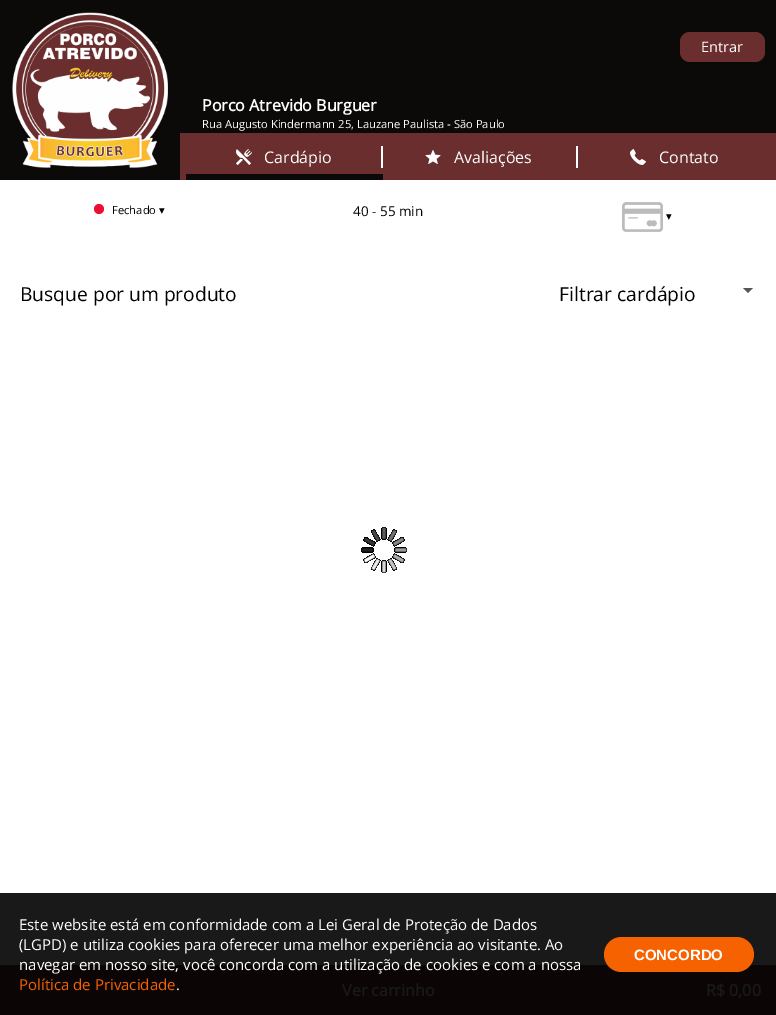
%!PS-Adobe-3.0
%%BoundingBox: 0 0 776 1015
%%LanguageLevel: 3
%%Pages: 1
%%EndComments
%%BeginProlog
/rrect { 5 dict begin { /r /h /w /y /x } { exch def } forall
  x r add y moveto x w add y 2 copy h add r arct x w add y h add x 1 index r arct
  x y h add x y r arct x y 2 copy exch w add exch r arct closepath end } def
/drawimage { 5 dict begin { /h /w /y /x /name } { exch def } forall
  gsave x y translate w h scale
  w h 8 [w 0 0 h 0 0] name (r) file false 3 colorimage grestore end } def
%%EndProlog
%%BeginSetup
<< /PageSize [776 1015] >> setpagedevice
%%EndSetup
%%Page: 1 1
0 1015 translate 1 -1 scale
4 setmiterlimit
1 setgray
0 0 776 1015 rectfill
0.098 setgray
0 893 776 72 rectfill
0.043 0.039 0.031 setrgbcolor
180 0 596 133 rectfill
(images/1.raw) 0 0 180 180 drawimage
0.416 0.18 0.18 setrgbcolor
680 32 85 30 10 rrect fill
180 133 596 47 rectfill
0.043 0.039 0.031 setrgbcolor
186 174 197 6 rectfill
1 setgray
381 146 2 22 rectfill
(images/2.raw) 236 149 16 16 drawimage
576 146 2 22 rectfill
(images/3.raw) 425 150 16 14 drawimage
(images/4.raw) 630 149 16 16 drawimage
0.925 0.055 0.196 setrgbcolor
newpath 99 209 5 0 360 arc closepath fill
(images/5.raw) 622 202 41 30 drawimage
0.043 0.02 0.02 setrgbcolor
0 965 776 50 rectfill
0.333 setgray
newpath 743 288 moveto 753 288 lineto 748 293 lineto closepath fill
(images/6.raw) 361 527 46 46 drawimage
0.965 0.384 0 setrgbcolor
604 937 150 35 17.5 rrect fill
/OpenSans-Regular [14.5 0 0 -14.5 0 0] selectfont
1 setgray
701 52 moveto (Entrar) show
/OpenSans-Bold [16 0 0 -16 0 0] selectfont
202 111 moveto (Porco Atrevido Burguer) show
/OpenSans-Regular [11.2 0 0 -11.2 0 0] selectfont
202 128 moveto (Rua Augusto Kindermann 25, Lauzane Paulista - São Paulo) show
/OpenSans-Regular [16 0 0 -16 0 0] selectfont
264 163 moveto (Cardápio) show
454 163 moveto (Avaliações) show
659 163 moveto (Contato) show
/OpenSans-Regular [11.2 0 0 -11.2 0 0] selectfont
0 setgray
112 214 moveto (Fechado) show
/DejaVuSans-Regular [11.2 0 0 -11.2 0 0] selectfont
159 214 moveto (▾) show
/OpenSans-Regular [13.5 0 0 -13.5 0 0] selectfont
353 216 moveto (40 - 55 min) show
/DejaVuSans-Regular [11.2 0 0 -11.2 0 0] selectfont
666 220 moveto (▾) show
/OpenSans-Bold [16 0 0 -16 0 0] selectfont
0.098 setgray
342 996 moveto (Ver carrinho) show
706 996 moveto (R$ 0,00) show
/OpenSans-Regular [19.25 0 0 -19.25 0 0] selectfont
0 setgray
20 301 moveto (Busque por um produto) show
559 301 moveto (Filtrar cardápio) show
/OpenSans-Regular [15 0 0 -15 0 0] selectfont
1 setgray
19 930 moveto (Este website está em conformidade com a Lei Geral de Proteção de Dados) show
19 950 moveto (\(LGPD\) e utiliza cookies para oferecer uma melhor experiência ao visitante. Ao) show
19 970 moveto (navegar em nosso site, você concorda com a utilização de cookies e com a nossa) show
0.965 0.384 0 setrgbcolor
19 990 moveto (Política de Privacidade) show
1 setgray
176 990 moveto (.) show
/LiberationSans-Bold [15 0 0 -15 0 0] selectfont
634 960 moveto (CONCORDO) show
showpage
%%EOF
